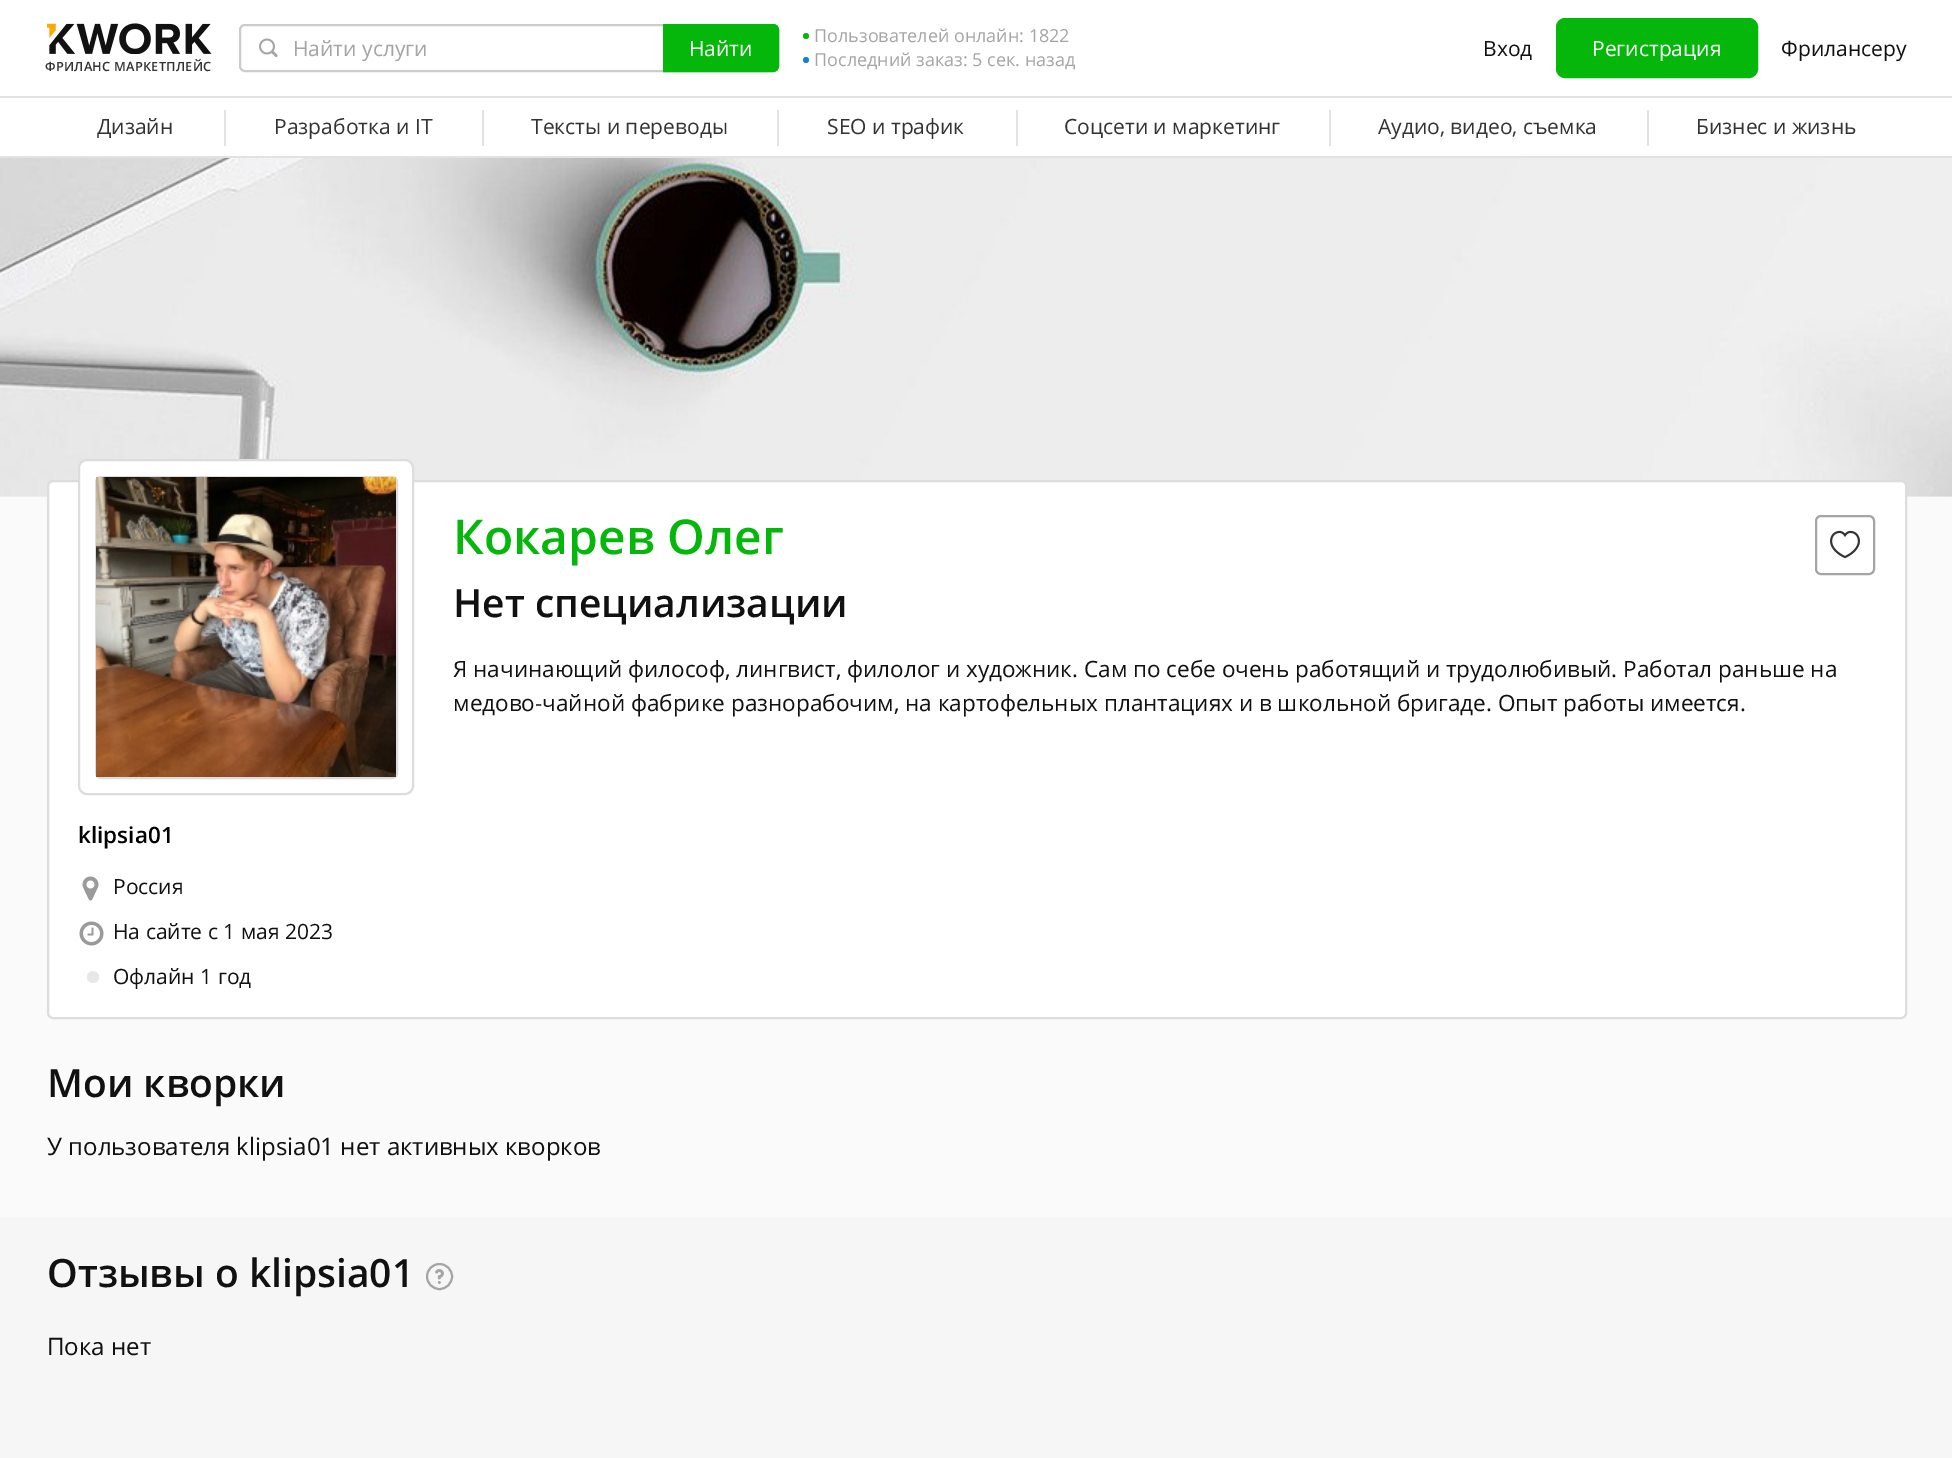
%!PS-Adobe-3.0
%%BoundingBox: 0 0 1952 1458
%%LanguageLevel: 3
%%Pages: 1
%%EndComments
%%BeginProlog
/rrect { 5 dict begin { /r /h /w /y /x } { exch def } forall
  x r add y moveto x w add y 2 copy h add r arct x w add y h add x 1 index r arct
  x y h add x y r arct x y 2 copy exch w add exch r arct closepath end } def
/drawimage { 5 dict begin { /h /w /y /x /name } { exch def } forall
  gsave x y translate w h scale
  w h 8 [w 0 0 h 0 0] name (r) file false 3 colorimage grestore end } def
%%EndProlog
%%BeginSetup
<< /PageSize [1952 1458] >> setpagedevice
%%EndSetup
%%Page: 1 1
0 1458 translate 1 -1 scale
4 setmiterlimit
0.965 setgray
0 0 1952 1458 rectfill
1 setgray
0 0 1952 156 rectfill
0.886 setgray
0 156 1952 2 rectfill
0.8 setgray
2 setlinewidth
240 25 538 46 5 rrect stroke
(images/1.raw) 259 38 19 20 drawimage
0.016 0.718 0.039 setrgbcolor
newpath 664 25 moveto 773 25 lineto 776 25 778 27 778 30 curveto 778 66 lineto 778 69 776 71 773 71 curveto 664 71 lineto closepath gsave fill grestore
stroke
newpath 806 36 3 0 360 arc closepath fill
0.09 0.49 0.898 setrgbcolor
newpath 806 60 3 0 360 arc closepath fill
0.016 0.718 0.039 setrgbcolor
1557 19 200 58 8 rrect gsave fill grestore
stroke
(images/2.raw) 47 23 165 31 drawimage
0.886 setgray
0 96 1952 2 rectfill
224 110 2 36 rectfill
482 110 2 36 rectfill
777 110 2 36 rectfill
1016 110 2 36 rectfill
1329 110 2 36 rectfill
1647 110 2 36 rectfill
(images/3.raw) 0 158 1952 339 drawimage
0.98 setgray
0 497 1952 720 rectfill
1 setgray
48 481 1858 537 5 rrect gsave fill grestore
0.867 setgray
stroke
0.647 setgray
1816 516 58 58 5 rrect stroke
(images/4.raw) 1830 530 30 29 drawimage
1 setgray
79 460 334 334 8 rrect gsave fill grestore
0.867 setgray
stroke
96 477 301 301 5 rrect stroke
(images/5.raw) 96 477 300 300 drawimage
(images/6.raw) 82 876 17 25 drawimage
(images/7.raw) 79 921 25 25 drawimage
0.91 setgray
newpath 93 977 6 0 360 arc closepath fill
0.647 setgray
newpath 439.5 1276.5 12.5 0 360 arc closepath stroke
(images/8.raw) 435 1269 9 15 drawimage
/OpenSans-Regular [21 0 0 -21 0 0] selectfont
293 56 moveto (Найти услуги) show
1 setgray
689 56 moveto (Найти) show
/OpenSans-Regular [18 0 0 -18 0 0] selectfont
0.647 setgray
814 42 moveto (Пользователей онлайн: 1822) show
814 66 moveto (Последний заказ: 5 сек. назад) show
/OpenSans-Regular [21 0 0 -21 0 0] selectfont
0.067 setgray
1483 56 moveto (Вход) show
1 setgray
1592 56 moveto (Регистрация) show
0.067 setgray
1781 56 moveto (Фрилансеру) show
/OpenSans-SemiBold [12.75 0 0 -12.75 0 0] selectfont
0.2 setgray
45 71 moveto 0.25 0 (ФРИЛАНС МАРКЕТПЛЕЙС) ashow
/OpenSans-Regular [21 0 0 -21 0 0] selectfont
97 134 moveto (Дизайн) show
274 134 moveto (Разработка и IT) show
531 134 moveto (Тексты и переводы) show
827 134 moveto (SEO и трафик) show
1064 134 moveto (Соцсети и маркетинг) show
1378 134 moveto (Аудио, видео, съемка) show
1696 134 moveto (Бизнес и жизнь) show
/OpenSans-SemiBold [48 0 0 -48 0 0] selectfont
0.016 0.718 0.039 setrgbcolor
453 554 moveto (Кокарев Олег) show
/OpenSans-SemiBold [39 0 0 -39 0 0] selectfont
0.067 setgray
453 617 moveto (Нет специализации) show
/OpenSans-Regular [22.5 0 0 -22.5 0 0] selectfont
453 677 moveto (Я начинающий философ, лингвист, филолог и художник. Сам по себе очень работящий и трудолюбивый. Работал раньше на) show
453 711 moveto (медово-чайной фабрике разнорабочим, на картофельных плантациях и в школьной бригаде. Опыт работы имеется.) show
/OpenSans-SemiBold [22.5 0 0 -22.5 0 0] selectfont
0 setgray
78 843 moveto (klipsia01) show
/OpenSans-Regular [21 0 0 -21 0 0] selectfont
0.067 setgray
113 894 moveto (Россия) show
113 939 moveto (На сайте с 1 мая 2023) show
113 984 moveto (Офлайн 1 год) show
/OpenSans-SemiBold [39 0 0 -39 0 0] selectfont
47 1097 moveto (Мои кворки) show
/OpenSans-Regular [24 0 0 -24 0 0] selectfont
47 1155 moveto (У пользователя klipsia01 нет активных кворков) show
/OpenSans-SemiBold [39 0 0 -39 0 0] selectfont
47 1287 moveto (Отзывы о klipsia01) show
/OpenSans-Regular [24 0 0 -24 0 0] selectfont
47 1355 moveto (Пока нет) show
showpage
%%EOF
